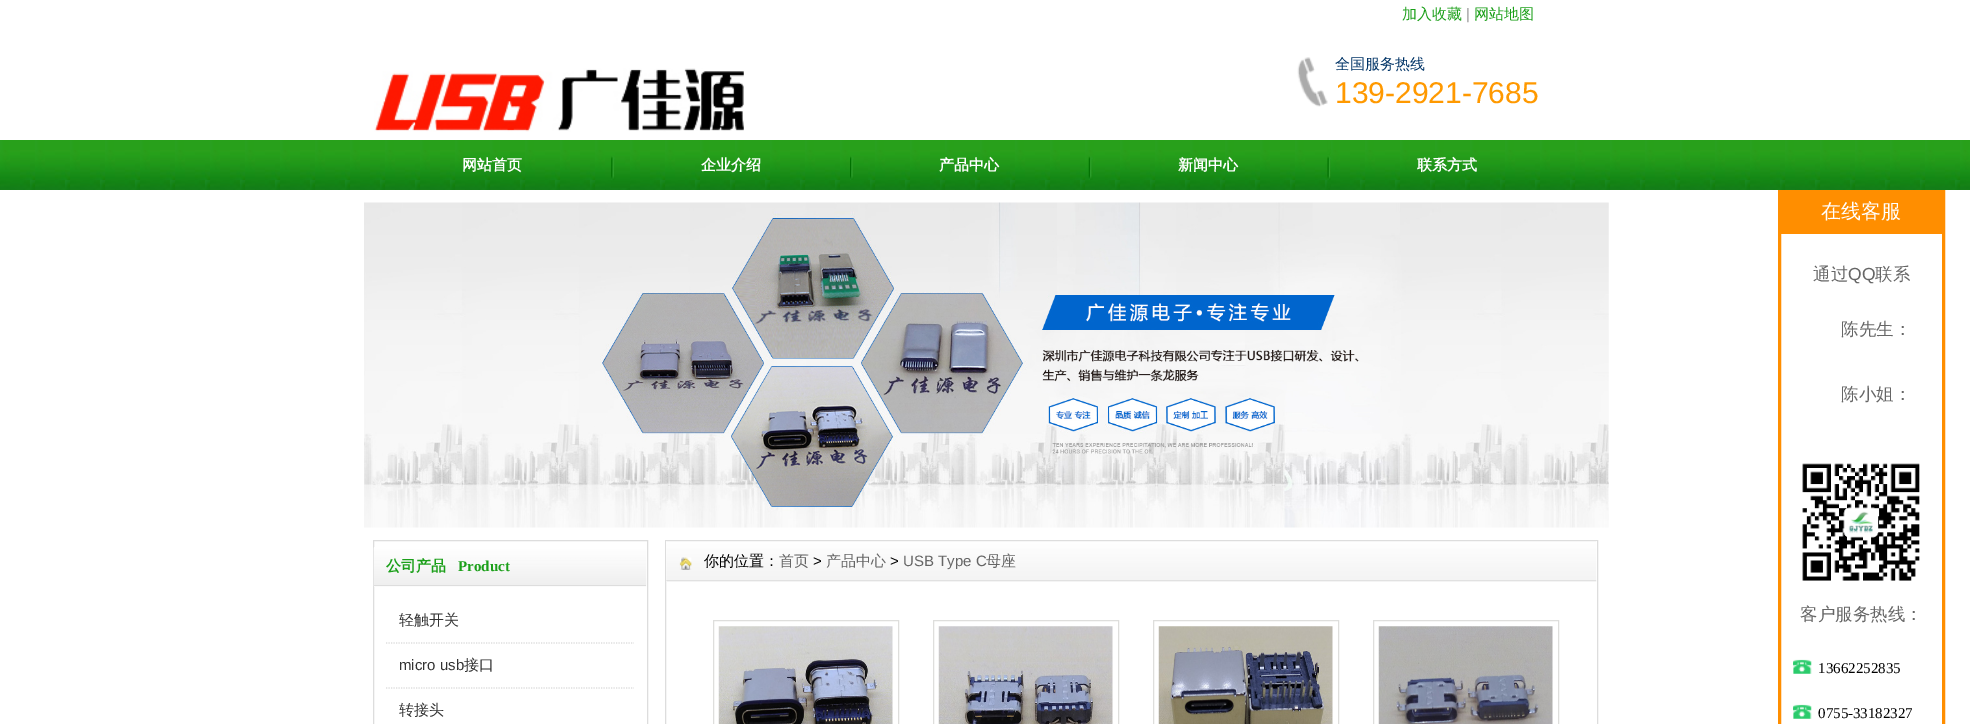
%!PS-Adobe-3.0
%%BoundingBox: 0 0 1970 724
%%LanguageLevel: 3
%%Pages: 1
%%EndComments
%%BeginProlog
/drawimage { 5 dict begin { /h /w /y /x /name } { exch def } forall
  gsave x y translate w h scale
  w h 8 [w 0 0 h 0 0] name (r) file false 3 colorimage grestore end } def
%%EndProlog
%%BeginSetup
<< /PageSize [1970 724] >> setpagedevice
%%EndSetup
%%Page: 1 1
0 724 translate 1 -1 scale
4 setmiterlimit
1 setgray
0 0 1970 724 rectfill
(images/1.raw) 374 68 370 64 drawimage
(images/2.raw) 1297 57 31 50 drawimage
1 0.557 0 setrgbcolor
3 setlinewidth
1779.5 189.5 164 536 rectstroke
(images/3.raw) 0 140 1970 50 drawimage
(images/4.raw) 611 156 19 32 drawimage
(images/5.raw) 850 156 18 24 drawimage
(images/6.raw) 1088 156 5 24 drawimage
(images/7.raw) 1327 141 4 47 drawimage
(images/8.raw) 364 202 1245 326 drawimage
1781 191 161 43 rectfill
(images/9.raw) 1802 463 118 118 drawimage
(images/10.raw) 1793 659 19 15 drawimage
(images/10.raw) 1793 704 19 15 drawimage
0.867 setgray
1 setlinewidth
373.5 540.5 274 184 rectstroke
(images/11.raw) 373 547 274 40 drawimage
374 585 272 1 rectfill
1.2 setlinewidth
[1.25 1.25] 0 setdash
newpath 386 643 moveto 634 643 lineto stroke
newpath 386 688 moveto 634 688 lineto stroke
1 setlinewidth
[] 0 setdash
665.5 540.5 932 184 rectstroke
(images/12.raw) 666 541 931 41 drawimage
(images/13.raw) 679 557 13 13 drawimage
0.871 0.871 0.863 setrgbcolor
713.5 620.5 185 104 rectstroke
(images/14.raw) 718 626 175 98 drawimage
933.5 620.5 185 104 rectstroke
(images/15.raw) 938 626 175 98 drawimage
1153.5 620.5 185 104 rectstroke
(images/16.raw) 1158 626 175 98 drawimage
1373.5 620.5 185 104 rectstroke
(images/17.raw) 1378 626 175 98 drawimage
/WenQuanYiZenHei-Medium [15 0 0 -15 0 0] selectfont
0.11 0.627 0.102 setrgbcolor
1402 19 moveto (加入收藏) show
/LiberationSans-Regular [15 0 0 -15 0 0] selectfont
0.6 setgray
1466 19 moveto (|) show
/WenQuanYiZenHei-Medium [15 0 0 -15 0 0] selectfont
0.11 0.627 0.102 setrgbcolor
1474 19 moveto (网站地图) show
0 0.2 0.4 setrgbcolor
1335 69 moveto (全国服务热线) show
/LiberationSans-Regular [30 0 0 -30 0 0] selectfont
1 0.6 0 setrgbcolor
1335 103 moveto (139-2921-7685) show
/WenQuanYiZenHei-Bold [15 0 0 -15 0 0] selectfont
1 setgray
462 170 moveto (网站首页) show
701 170 moveto (企业介绍) show
939 170 moveto (产品中心) show
1178 170 moveto (新闻中心) show
1417 170 moveto (联系方式) show
/WenQuanYiZenHei-Medium [20 0 0 -20 0 0] selectfont
1821 218 moveto (在线客服) show
/WenQuanYiZenHei-Medium [17.5 0 0 -17.5 0 0] selectfont
0.4 setgray
1813 280 moveto (通过) show
/LiberationSans-Regular [17.5 0 0 -17.5 0 0] selectfont
1848 280 moveto (QQ) show
/WenQuanYiZenHei-Medium [17.5 0 0 -17.5 0 0] selectfont
1875 280 moveto (联系) show
1841 335 moveto (陈先生：) show
1841 400 moveto (陈小姐：) show
1800 620 moveto (客户服务热线：) show
/LiberationSerif-Regular [15 0 0 -15 0 0] selectfont
0 setgray
1818 673 moveto (13662252835) show
1818 718 moveto (0755-33182327) show
/WenQuanYiZenHei-Bold [15 0 0 -15 0 0] selectfont
0.11 0.627 0.102 setrgbcolor
386 571 moveto (公司产品) show
/LiberationSerif-Bold [15 0 0 -15 0 0] selectfont
458 571 moveto (Product) show
/WenQuanYiZenHei-Medium [15 0 0 -15 0 0] selectfont
0.2 setgray
399 625 moveto (轻触开关) show
/LiberationSans-Regular [15 0 0 -15 0 0] selectfont
399 670 moveto (micro usb) show
/WenQuanYiZenHei-Medium [15 0 0 -15 0 0] selectfont
464 670 moveto (接口) show
399 715 moveto (转接头) show
0 setgray
704 566 moveto (你的位置：) show
0.4 setgray
779 566 moveto (首页) show
/LiberationSans-Regular [15 0 0 -15 0 0] selectfont
0 setgray
813 566 moveto (>) show
/WenQuanYiZenHei-Medium [15 0 0 -15 0 0] selectfont
0.4 setgray
826 566 moveto (产品中心) show
/LiberationSans-Regular [15 0 0 -15 0 0] selectfont
0 setgray
890 566 moveto (>) show
0.4 setgray
903 566 moveto (USB Type C) show
/WenQuanYiZenHei-Medium [15 0 0 -15 0 0] selectfont
986 566 moveto (母座) show
showpage
%%EOF
